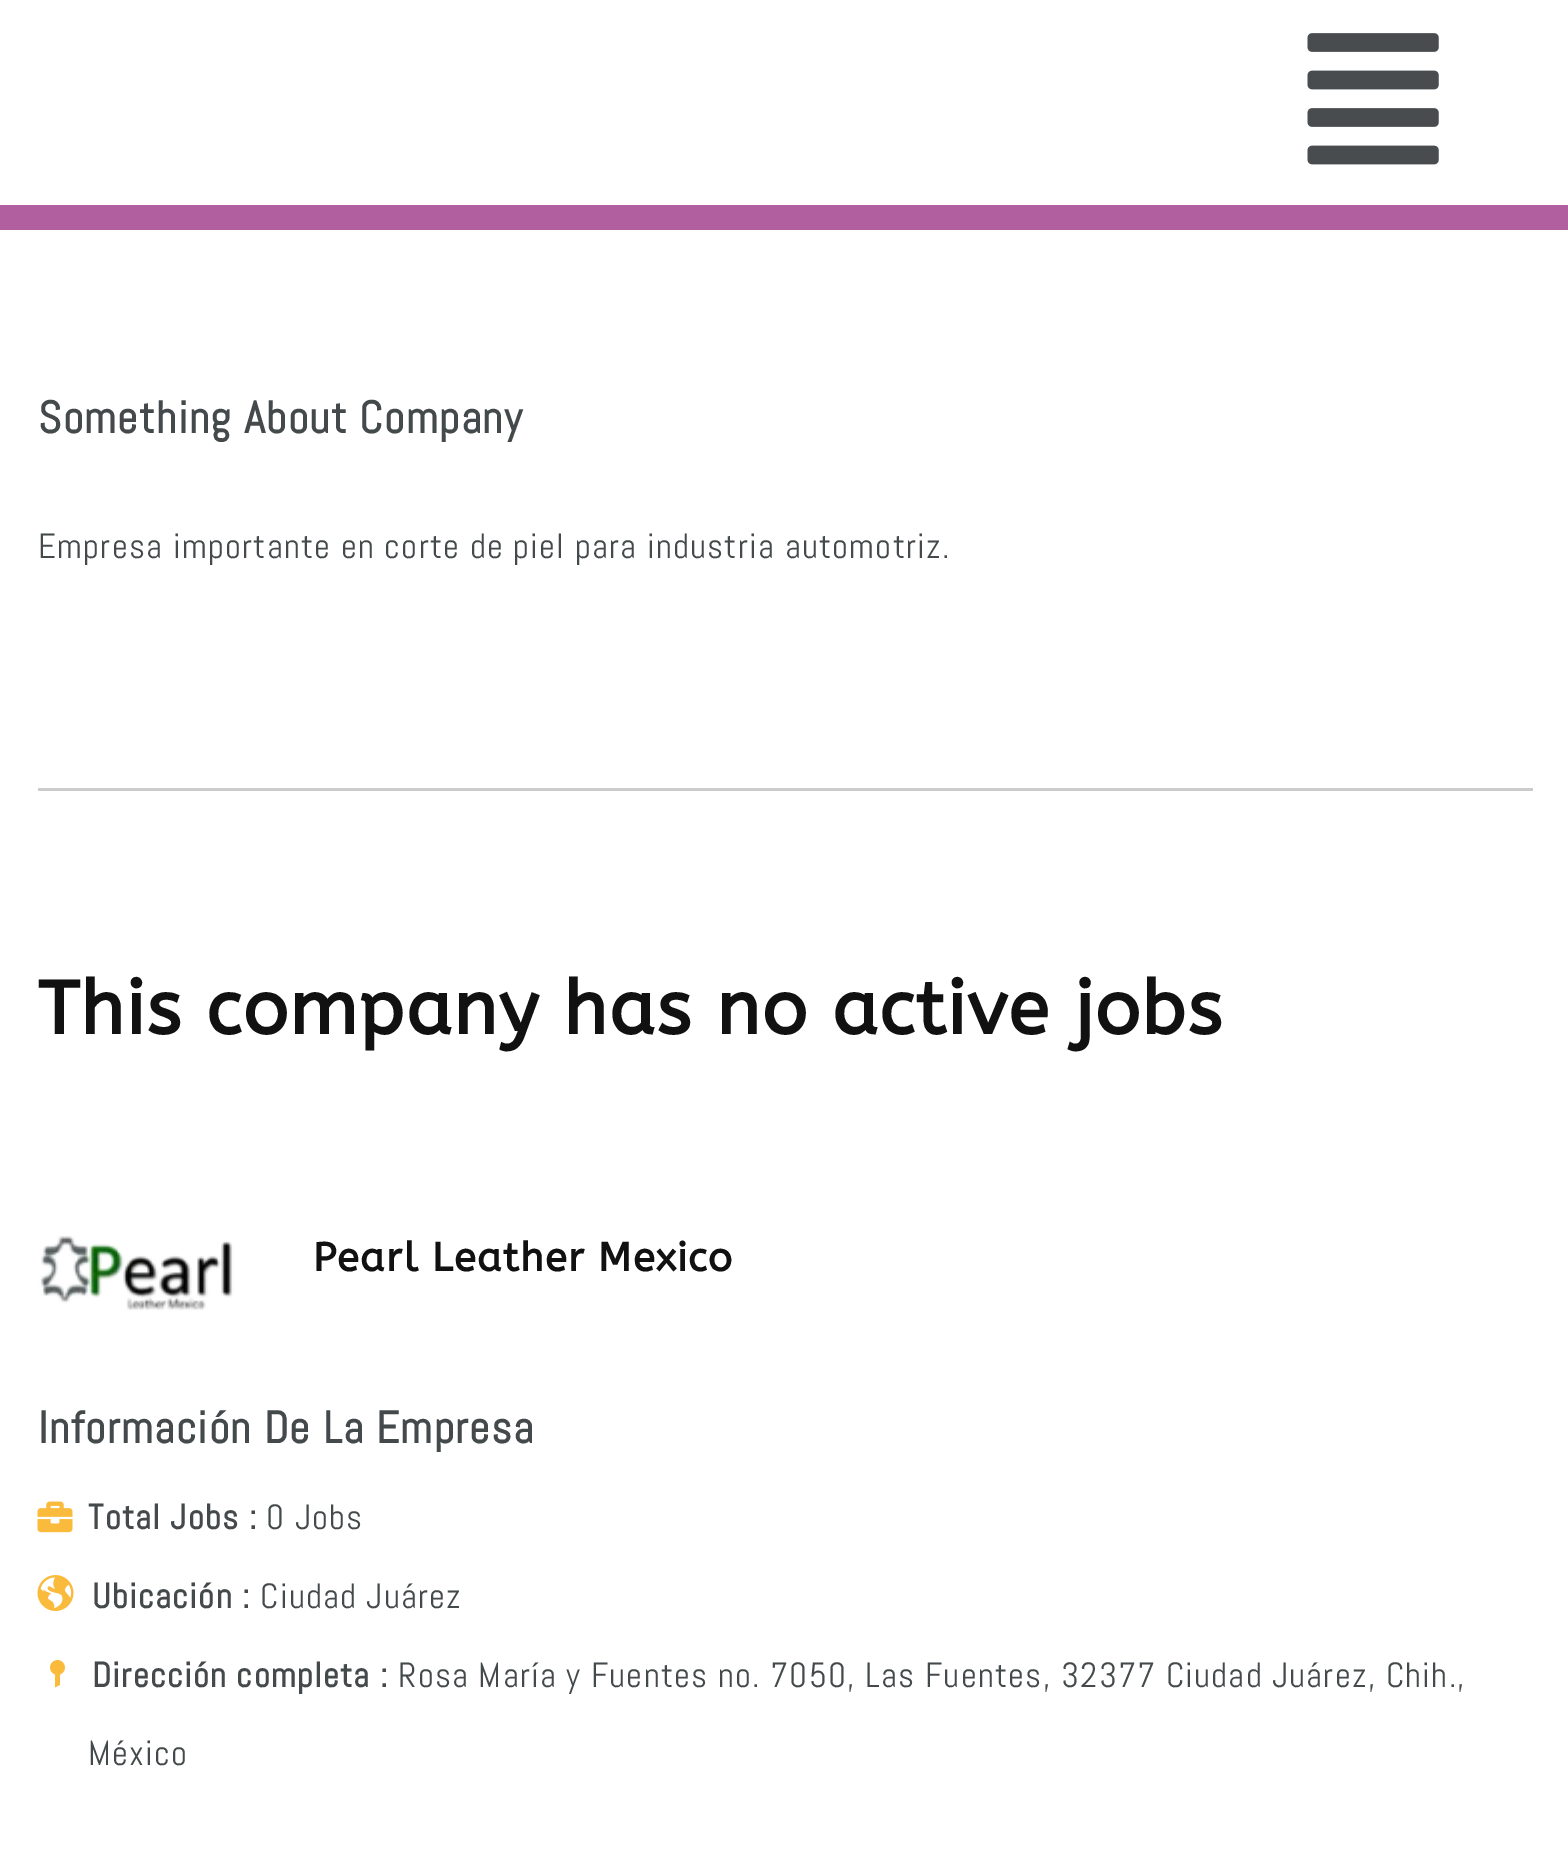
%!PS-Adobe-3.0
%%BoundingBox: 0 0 1568 1859
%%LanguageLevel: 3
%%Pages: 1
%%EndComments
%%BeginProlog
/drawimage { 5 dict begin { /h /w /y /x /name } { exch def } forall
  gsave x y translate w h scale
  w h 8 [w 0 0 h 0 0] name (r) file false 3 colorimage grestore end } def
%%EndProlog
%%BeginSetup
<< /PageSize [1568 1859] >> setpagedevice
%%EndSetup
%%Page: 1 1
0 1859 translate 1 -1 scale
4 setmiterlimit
1 setgray
0 0 1568 1859 rectfill
0.694 0.373 0.624 setrgbcolor
0 205 1568 25 rectfill
(images/1.raw) 1307 33 132 132 drawimage
0.8 setgray
38 788 1495 3 rectfill
(images/2.raw) 39 1236 195 75 drawimage
(images/3.raw) 37 1501 36 32 drawimage
(images/4.raw) 37 1575 37 36 drawimage
(images/5.raw) 50 1660 15 28 drawimage
/Abel-Bold [45 0 0 -45 0 0] selectfont
0.267 0.286 0.294 setrgbcolor
38 433 moveto 1.25 0 (Something About Company) ashow
/Abel-Regular [35 0 0 -35 0 0] selectfont
38 558 moveto 1.25 0 (Empresa importante en corte de piel para industria automotriz.) ashow
/ABeeZee-Bold [75 0 0 -75 0 0] selectfont
0.067 setgray
38 1034 moveto 1.25 0 (This company has no active jobs) ashow
/ABeeZee-Bold [40 0 0 -40 0 0] selectfont
313 1271 moveto 1.25 0 (Pearl Leather Mexico) ashow
/Abel-Bold [45 0 0 -45 0 0] selectfont
0.267 0.286 0.294 setrgbcolor
38 1443 moveto 1.25 0 (Información De La Empresa) ashow
/Abel-Bold [35 0 0 -35 0 0] selectfont
88 1529 moveto 1.25 0 (Total Jobs :) ashow
/Abel-Regular [35 0 0 -35 0 0] selectfont
266 1529 moveto 1.25 0 (0 Jobs) ashow
/Abel-Bold [35 0 0 -35 0 0] selectfont
92 1608 moveto 1.25 0 (Ubicación :) ashow
/Abel-Regular [35 0 0 -35 0 0] selectfont
260 1608 moveto 1.25 0 (Ciudad Juárez) ashow
/Abel-Bold [35 0 0 -35 0 0] selectfont
92 1687 moveto 1.25 0 (Dirección completa :) ashow
/Abel-Regular [35 0 0 -35 0 0] selectfont
398 1687 moveto 1.25 0 (Rosa María y Fuentes no. 7050, Las Fuentes, 32377 Ciudad Juárez, Chih.,) ashow
88 1765 moveto 1.25 0 (México) ashow
showpage
%%EOF
